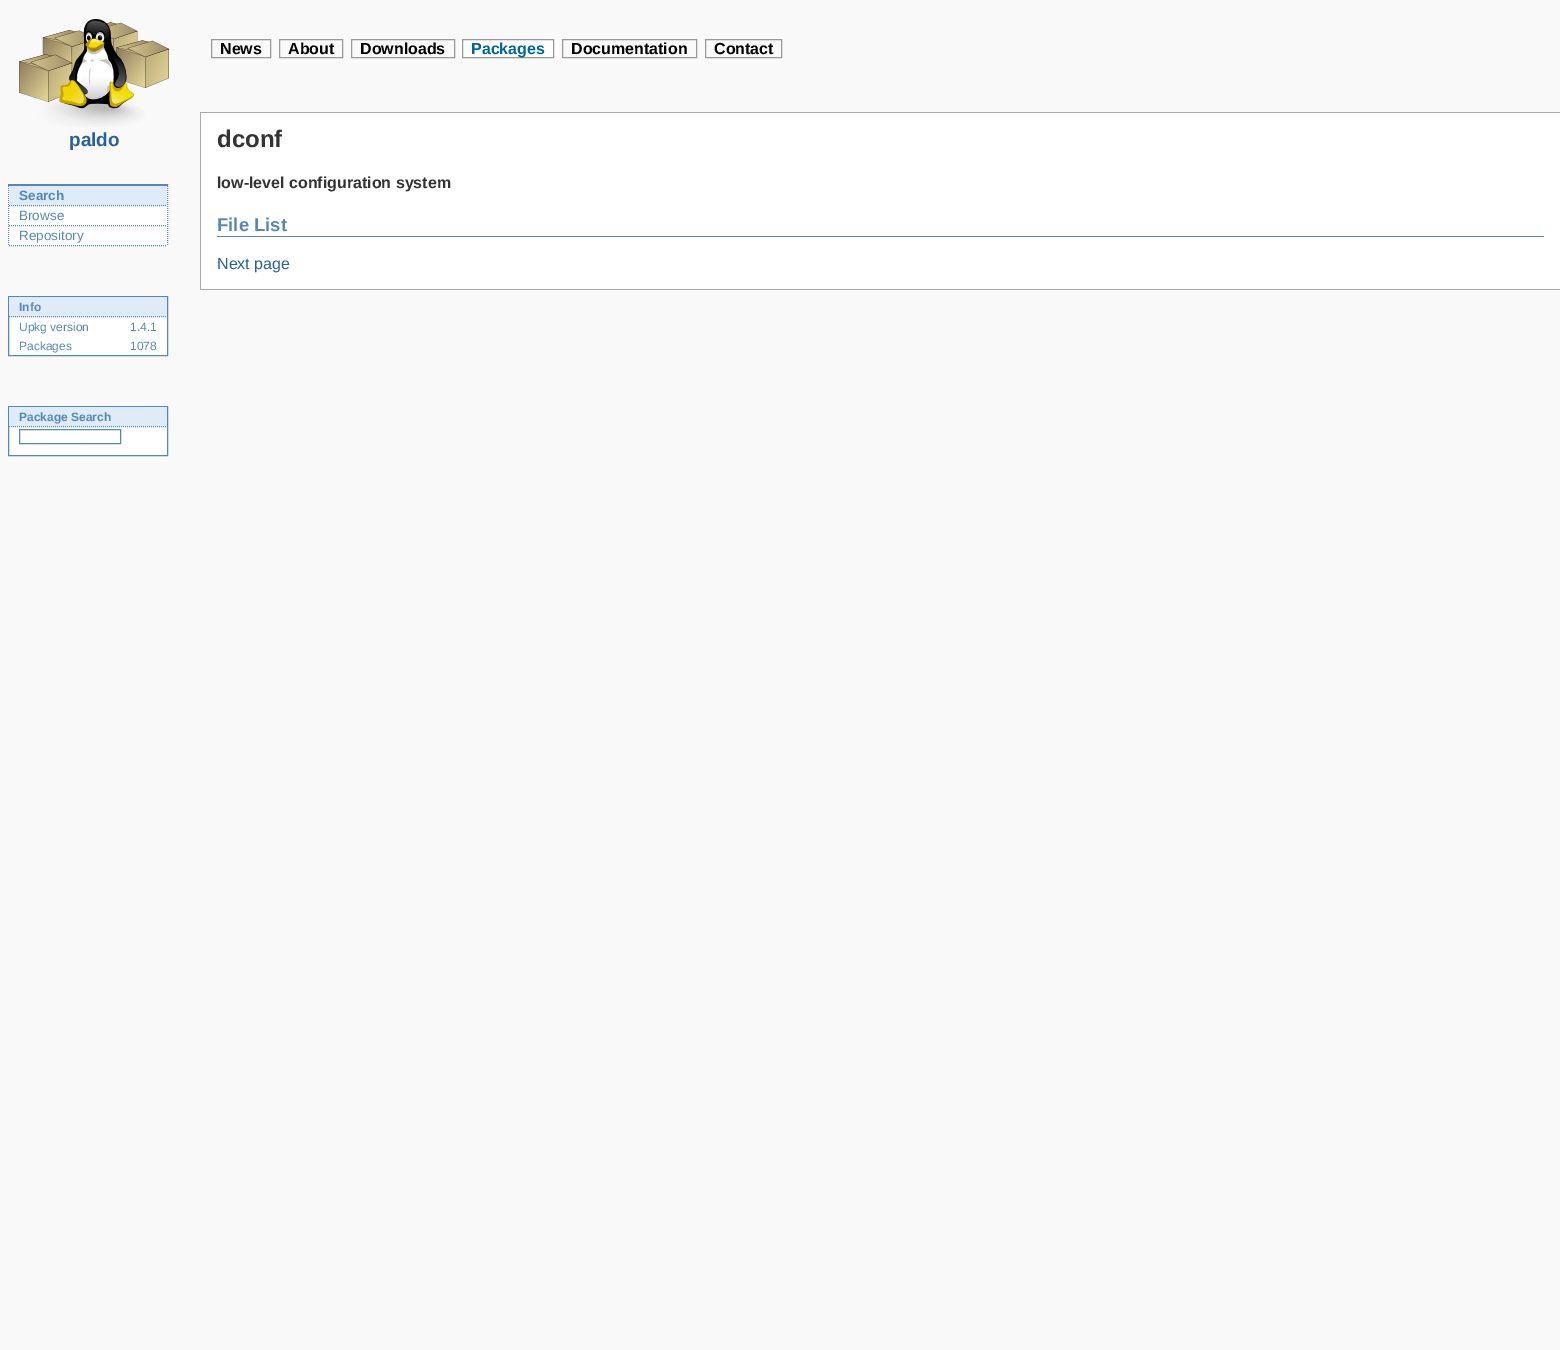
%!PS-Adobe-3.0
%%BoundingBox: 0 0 1560 1350
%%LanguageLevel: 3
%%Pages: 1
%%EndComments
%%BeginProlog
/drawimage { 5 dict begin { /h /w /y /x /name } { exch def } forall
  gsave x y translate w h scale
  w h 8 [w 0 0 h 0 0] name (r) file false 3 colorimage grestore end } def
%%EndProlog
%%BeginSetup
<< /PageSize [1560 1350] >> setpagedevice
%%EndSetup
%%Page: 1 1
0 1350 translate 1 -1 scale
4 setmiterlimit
0.976 setgray
0 0 1560 1350 rectfill
0.6 setgray
211.5 39.5 59 18 rectstroke
279.5 39.5 63 18 rectstroke
351.5 39.5 103 18 rectstroke
1 setgray
459 40 100 17 rectfill
0.6 setgray
462.5 39.5 91 18 rectstroke
562.5 39.5 134 18 rectstroke
705.5 39.5 76 18 rectstroke
1 setgray
8 187 160 59 rectfill
0.341 0.529 0.722 setrgbcolor
8 184 160 2 rectfill
[1 1] 0 setdash
newpath 167.5 184 moveto 167.5 246 lineto stroke
newpath 8.5 184 moveto 8.5 246 lineto stroke
0.875 0.922 0.969 setrgbcolor
9 186 158 20 rectfill
0.341 0.529 0.722 setrgbcolor
newpath 9 205.5 moveto 167 205.5 lineto stroke
newpath 9 225.5 moveto 167 225.5 lineto stroke
newpath 9 245.5 moveto 167 245.5 lineto stroke
1 setgray
9 317 158 38 rectfill
0.341 0.529 0.722 setrgbcolor
[] 0 setdash
8.5 296.5 159 59 rectstroke
0.875 0.922 0.969 setrgbcolor
9 297 158 20 rectfill
0.341 0.529 0.722 setrgbcolor
[1 1] 0 setdash
newpath 9 316.5 moveto 167 316.5 lineto stroke
1 setgray
9 427 158 28 rectfill
0.341 0.529 0.722 setrgbcolor
[] 0 setdash
8.5 406.5 159 49 rectstroke
0.875 0.922 0.969 setrgbcolor
9 407 158 20 rectfill
0.341 0.529 0.722 setrgbcolor
[1 1] 0 setdash
newpath 9 426.5 moveto 167 426.5 lineto stroke
[] 0 setdash
19.5 429.5 101 14 rectstroke
1 setgray
201 113 1359 176 rectfill
0.667 setgray
200 112 1360 1 rectfill
200 289 1360 1 rectfill
200 112 1 178 rectfill
0.341 0.529 0.722 setrgbcolor
217 236 1327 1 rectfill
(images/1.raw) 19 19 150 108 drawimage
/LiberationSans-Bold [16 0 0 -16 0 0] selectfont
0 setgray
220 54 moveto (News) show
288 54 moveto (About) show
360 54 moveto (Downloads) show
0 0.4 0.6 setrgbcolor
471 54 moveto (Packages) show
0 setgray
571 54 moveto (Documentation) show
714 54 moveto (Contact) show
/LiberationSans-Bold [13.5 0 0 -13.5 0 0] selectfont
0.341 0.529 0.722 setrgbcolor
19 200 moveto (Search) show
/LiberationSans-Regular [13.5 0 0 -13.5 0 0] selectfont
19 220 moveto (Browse) show
19 240 moveto (Repository) show
/LiberationSans-Bold [12 0 0 -12 0 0] selectfont
19 311 moveto (Info) show
/LiberationSans-Regular [12 0 0 -12 0 0] selectfont
19 331 moveto (Upkg version) show
130 331 moveto (1.4.1) show
19 350 moveto (Packages) show
130 350 moveto (1078) show
/LiberationSans-Bold [12 0 0 -12 0 0] selectfont
19 421 moveto (Package Search) show
/LiberationSans-Bold [24 0 0 -24 0 0] selectfont
0.2 setgray
217 147 moveto (dconf) show
/LiberationSans-Bold [16 0 0 -16 0 0] selectfont
217 188 moveto (low-level configuration system) show
/LiberationSans-Bold [18.5 0 0 -18.5 0 0] selectfont
0.341 0.529 0.722 setrgbcolor
217 231 moveto (File List) show
/LiberationSans-Regular [16 0 0 -16 0 0] selectfont
0.165 0.376 0.588 setrgbcolor
217 269 moveto (Next page) show
/LiberationSans-Bold [19 0 0 -19 0 0] selectfont
69 146 moveto (paldo) show
showpage
%%EOF
